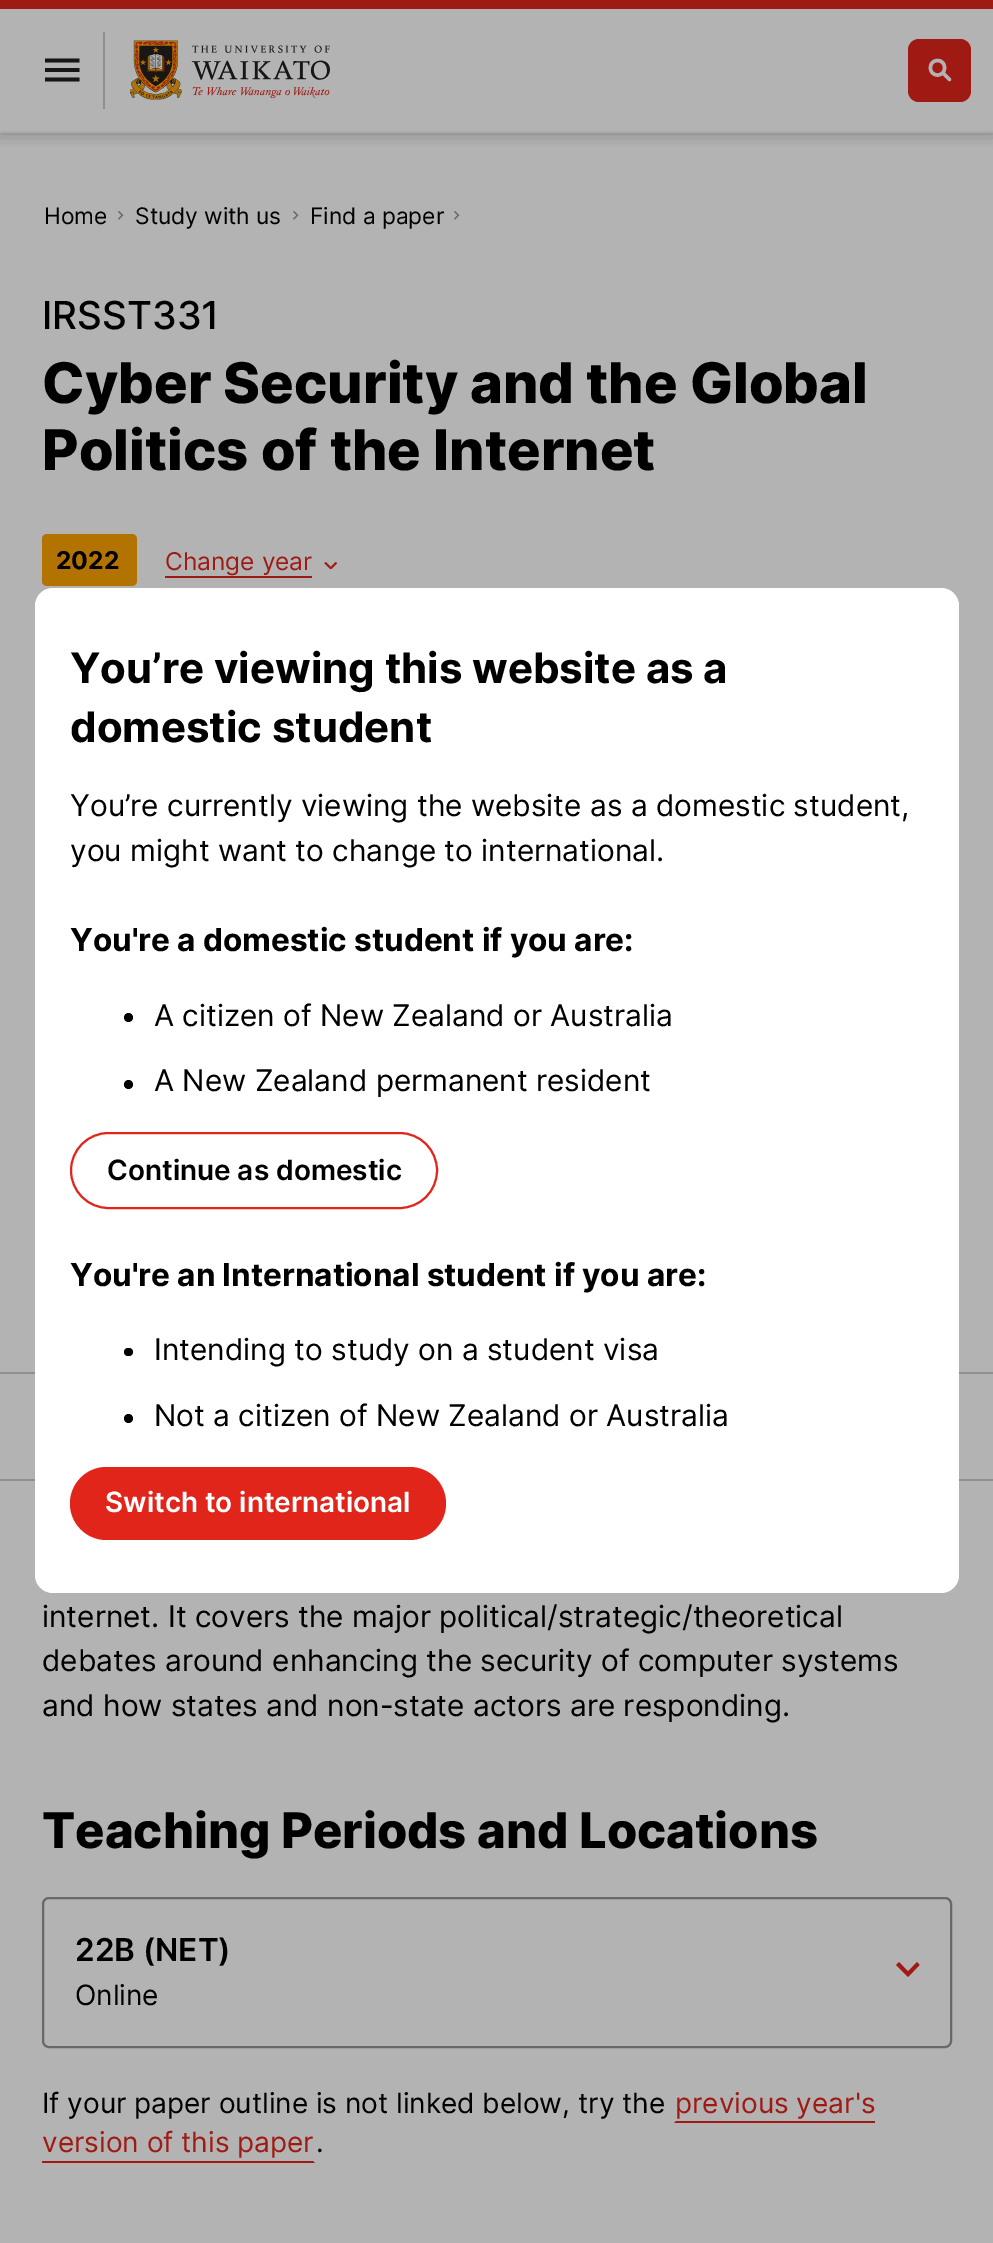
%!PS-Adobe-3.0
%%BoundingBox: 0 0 993 2243
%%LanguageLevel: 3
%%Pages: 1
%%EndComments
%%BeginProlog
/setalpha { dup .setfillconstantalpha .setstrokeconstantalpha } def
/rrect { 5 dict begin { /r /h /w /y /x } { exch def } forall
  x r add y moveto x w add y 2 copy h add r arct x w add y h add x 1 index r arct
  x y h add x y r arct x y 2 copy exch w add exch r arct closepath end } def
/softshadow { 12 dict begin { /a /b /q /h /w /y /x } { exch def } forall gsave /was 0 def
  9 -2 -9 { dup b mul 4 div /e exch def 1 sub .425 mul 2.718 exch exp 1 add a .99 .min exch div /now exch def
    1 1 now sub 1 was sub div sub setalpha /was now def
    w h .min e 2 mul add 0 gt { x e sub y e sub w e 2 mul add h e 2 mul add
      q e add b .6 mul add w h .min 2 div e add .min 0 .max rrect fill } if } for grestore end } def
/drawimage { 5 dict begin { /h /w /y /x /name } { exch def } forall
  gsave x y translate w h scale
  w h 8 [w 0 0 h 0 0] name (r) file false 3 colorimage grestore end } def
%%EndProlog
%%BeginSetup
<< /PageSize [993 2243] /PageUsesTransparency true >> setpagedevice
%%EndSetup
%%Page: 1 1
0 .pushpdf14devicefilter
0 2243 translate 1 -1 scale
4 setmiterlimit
0.702 setgray
0 0 993 2243 rectfill
gsave
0 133 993 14 rectclip
0 setgray
0 0 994 133 0 9 0.3 softshadow
grestore
0.62 0.102 0.075 setrgbcolor
0 0 993 9 rectfill
0.671 setgray
0 131 993 2 rectfill
0.561 setgray
103 32 2 77 rectfill
0.086 setgray
newpath 45 81.5 moveto 79.5 81.5 lineto 79.5 77.5 lineto 45 77.5 lineto closepath 45 72 moveto 79.5 72 lineto 79.5 68 lineto 45 68 lineto closepath 45 58.5 moveto 45 62.5 lineto 79.5 62.5 lineto 79.5 58.5 lineto closepath fill
(images/1.raw) 130 40 200 60 drawimage
0.62 0.102 0.075 setrgbcolor
908 39 63 63 11 rrect fill
0.702 setgray
3.4 setlinewidth
1 setlinecap
1 setlinejoin
newpath 937.5 75 moveto 947 75 947 60.5 937.5 60.5 curveto 928 60.5 928 75 937.5 75 curveto closepath 949.5 79.5 moveto 943 73 lineto stroke
0.561 setgray
0 1372 993 2 rectfill
(images/2.raw) 118 211 6 9 drawimage
(images/2.raw) 293 211 6 9 drawimage
(images/2.raw) 454 211 6 9 drawimage
0.702 0.451 0 setrgbcolor
42 534 95 52 5 rrect fill
0.62 0.102 0.075 setrgbcolor
165 576 147 2 rectfill
(images/3.raw) 324 562 14 7 drawimage
0.561 setgray
0 1479 993 2 rectfill
0.408 setgray
2 setlinewidth
0 setlinecap
0 setlinejoin
43 1898 908 149 6 rrect stroke
0.62 0.102 0.075 setrgbcolor
newpath 899 1962 moveto 908 1971.5 lineto 917 1962 lineto 919.5 1965 lineto 908 1977 lineto 896 1965 lineto closepath fill
newpath 875 2123 moveto 674 2123 lineto 676 2121 lineto 875 2121 lineto closepath fill
newpath 315 2163 moveto 42 2163 lineto 42 2161 lineto 313 2161 lineto closepath fill
1 setgray
35 588 924 1005 18 rrect fill
0 setgray
newpath 128.5 1017.5 4.5 0 360 arc closepath fill
newpath 128.5 1084.5 4.5 0 360 arc closepath fill
0.882 0.145 0.106 setrgbcolor
71 1133 366 75 37.5 rrect stroke
0 setgray
124 1348 9 8 4 rrect fill
newpath 128.5 1418.5 4.5 0 360 arc closepath fill
0.882 0.145 0.106 setrgbcolor
70 1467 376 73 36.5 rrect fill
/Inter-Regular [22.75 0 0 -22.75 0 0] selectfont
0 setgray
44 224 moveto (Home) show
135 224 moveto (Study with us) show
310 224 moveto (Find a paper) show
/Inter-Medium [38.5 0 0 -38.5 0 0] selectfont
42 329 moveto (IRSST331) show
/Inter-ExtraBold [56 0 0 -56 0 0] selectfont
42 403 moveto (Cyber Security and the Global) show
42 470 moveto (Politics of the Internet) show
/Inter-Bold [24.5 0 0 -24.5 0 0] selectfont
56 569 moveto (2022) show
/Inter-Regular [24.5 0 0 -24.5 0 0] selectfont
0.62 0.102 0.075 setrgbcolor
165 570 moveto (Change year) show
/Inter-Regular [29.75 0 0 -29.75 0 0] selectfont
0 setgray
42 1627 moveto (internet. It covers the major political/strategic/theoretical) show
42 1671 moveto (debates around enhancing the security of computer systems) show
42 1716 moveto (and how states and non-state actors are responding.) show
/Inter-ExtraBold [49 0 0 -49 0 0] selectfont
42 1848 moveto (Teaching Periods and Locations) show
/Inter-SemiBold [31.5 0 0 -31.5 0 0] selectfont
75 1961 moveto (22B \(NET\)) show
/Inter-Regular [28 0 0 -28 0 0] selectfont
75 2005 moveto (Online) show
42 2113 moveto (If your paper outline is not linked below, try the) show
0.62 0.102 0.075 setrgbcolor
675 2113 moveto (previous year's) show
42 2152 moveto (version of this paper) show
0 setgray
316 2152 moveto (.) show
/Inter-Bold [42 0 0 -42 0 0] selectfont
70 683 moveto (You’re viewing this website as a) show
70 742 moveto (domestic student) show
/Inter-Regular [29.75 0 0 -29.75 0 0] selectfont
70 816 moveto (You’re currently viewing the website as a domestic student,) show
70 861 moveto (you might want to change to international.) show
/Inter-Bold [31.5 0 0 -31.5 0 0] selectfont
70 951 moveto (You're a domestic student if you are:) show
/Inter-Regular [29.75 0 0 -29.75 0 0] selectfont
154 1026 moveto (A citizen of New Zealand or Australia) show
154 1091 moveto (A New Zealand permanent resident) show
/Inter-SemiBold [28 0 0 -28 0 0] selectfont
107 1180 moveto (Continue as domestic) show
/Inter-Bold [31.5 0 0 -31.5 0 0] selectfont
70 1286 moveto (You're an International student if you are:) show
/Inter-Regular [29.75 0 0 -29.75 0 0] selectfont
154 1360 moveto (Intending to study on a student visa) show
154 1426 moveto (Not a citizen of New Zealand or Australia) show
/Inter-SemiBold [28 0 0 -28 0 0] selectfont
1 setgray
105 1512 moveto (Switch to international) show
.poppdf14devicefilter showpage
%%EOF
